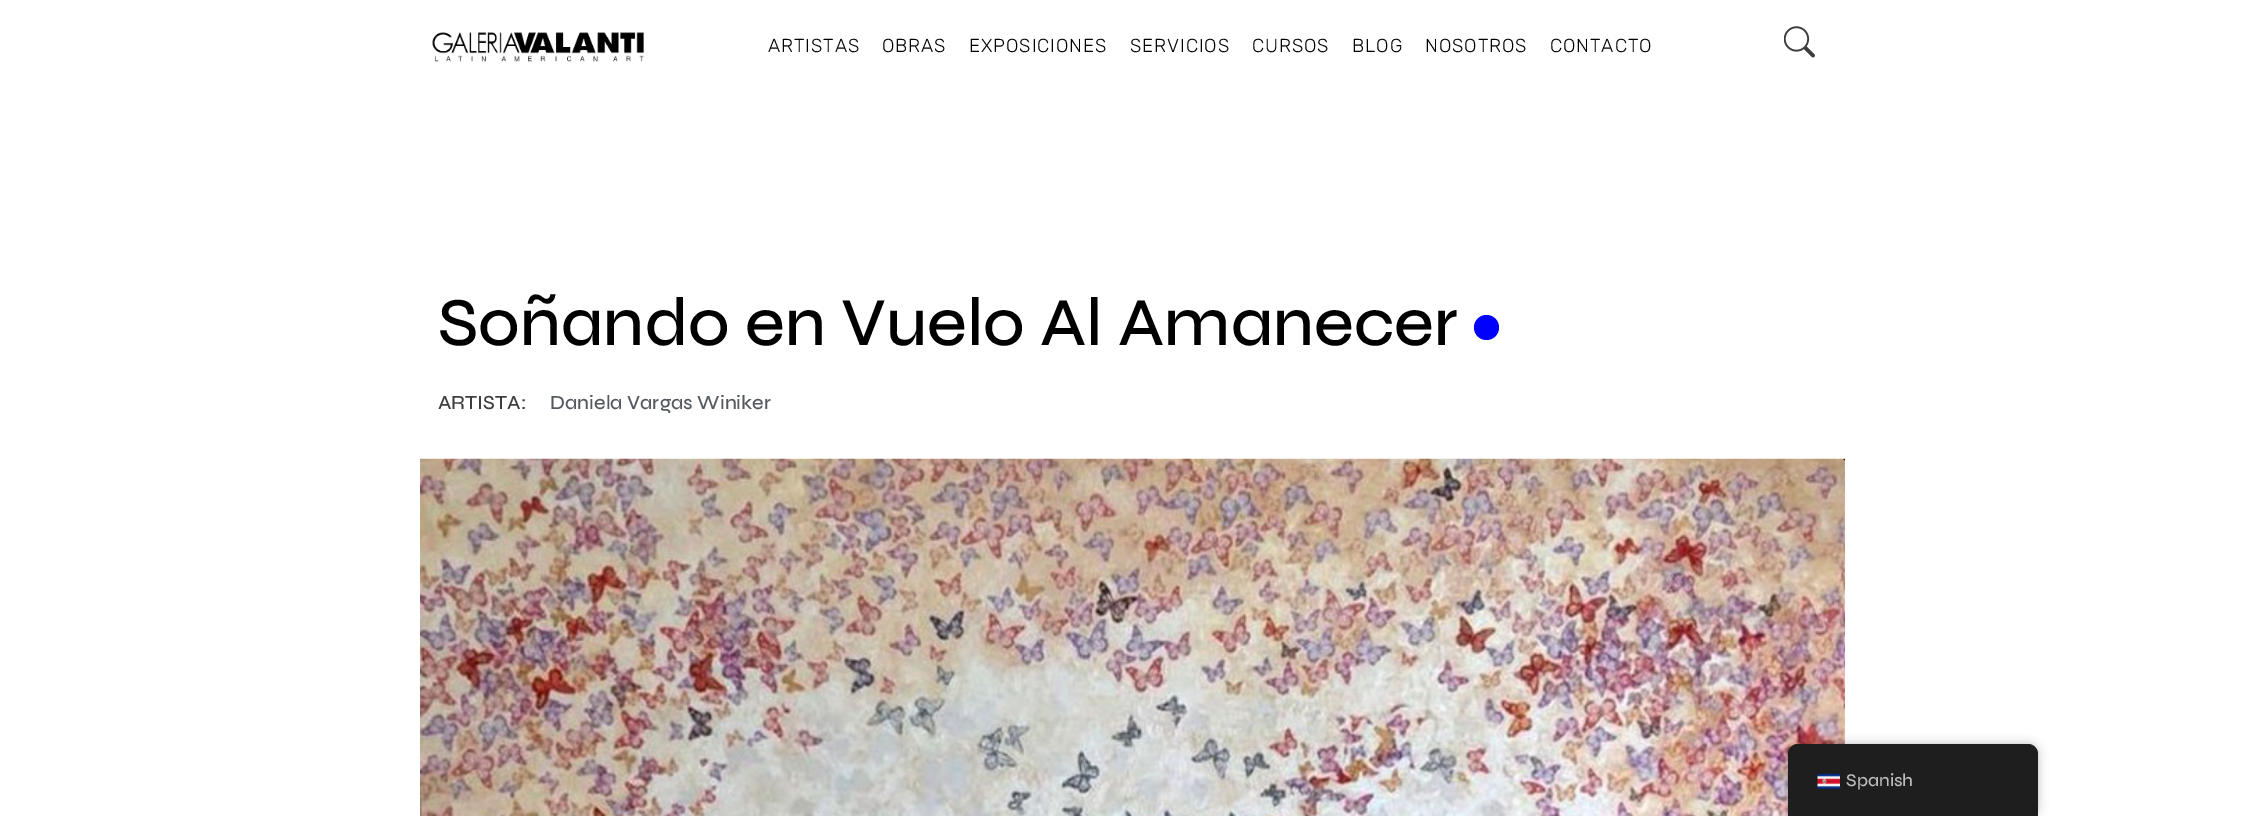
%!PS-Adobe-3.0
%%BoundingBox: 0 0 2263 816
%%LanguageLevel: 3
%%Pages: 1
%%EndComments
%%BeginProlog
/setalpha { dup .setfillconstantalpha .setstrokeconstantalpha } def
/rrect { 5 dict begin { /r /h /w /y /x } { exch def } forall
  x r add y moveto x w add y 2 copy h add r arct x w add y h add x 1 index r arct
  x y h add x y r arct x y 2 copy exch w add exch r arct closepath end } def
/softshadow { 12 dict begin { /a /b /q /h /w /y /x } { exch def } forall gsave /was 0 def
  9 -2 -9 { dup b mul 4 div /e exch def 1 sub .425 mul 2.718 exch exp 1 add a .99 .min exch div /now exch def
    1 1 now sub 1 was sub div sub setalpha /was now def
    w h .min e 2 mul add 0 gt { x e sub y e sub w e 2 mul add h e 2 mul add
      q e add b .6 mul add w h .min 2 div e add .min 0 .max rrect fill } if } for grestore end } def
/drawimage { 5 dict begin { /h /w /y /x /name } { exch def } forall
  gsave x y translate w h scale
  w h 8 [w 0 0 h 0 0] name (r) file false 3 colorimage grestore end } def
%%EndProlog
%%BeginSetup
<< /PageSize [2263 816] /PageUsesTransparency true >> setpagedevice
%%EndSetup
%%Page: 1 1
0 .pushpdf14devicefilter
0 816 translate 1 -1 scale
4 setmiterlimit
1 setgray
0 0 2263 816 rectfill
(images/1.raw) 432 32 212 30 drawimage
(images/2.raw) 1784 26 31 32 drawimage
0 0 1 setrgbcolor
newpath 1486.5 327.5 12.5 0 360 arc closepath fill
(images/3.raw) 420 458 1425 358 drawimage
0 setgray
1788 744 250 72 10 5 0.25 softshadow
0.118 setgray
newpath 1798 744 moveto 2028 744 lineto 2033.5 744 2038 748.5 2038 754 curveto 2038 816 lineto 1788 816 lineto 1788 754 lineto 1788 748.5 1792.5 744 1798 744 curveto closepath fill
(images/4.raw) 1817 773 23 16 drawimage
/Rubik-Light [18.75 0 0 -18.75 0 0] selectfont
0 setgray
768 52 moveto 0.9 0 (ARTISTAS) ashow
882 52 moveto 0.9 0 (OBRAS) ashow
969 52 moveto 0.9 0 (EXPOSICIONES) ashow
1130 52 moveto 0.9 0 (SERVICIOS) ashow
1252 52 moveto 0.9 0 (CURSOS) ashow
1352 52 moveto 0.9 0 (BLOG) ashow
1425 52 moveto 0.9 0 (NOSOTROS) ashow
1550 52 moveto 0.9 0 (CONTACTO) ashow
/Syne-Medium [68.75 0 0 -68.75 0 0] selectfont
438 345 moveto (Soñando en Vuelo Al Amanecer) show
/Syne-Medium [20 0 0 -20 0 0] selectfont
0.239 setgray
438 409 moveto (ARTISTA:) show
0.329 0.349 0.373 setrgbcolor
550 409 moveto (Daniela Vargas Winiker) show
/Syne-Medium [18 0 0 -18 0 0] selectfont
0.741 setgray
1846 786 moveto (Spanish) show
.poppdf14devicefilter showpage
%%EOF
